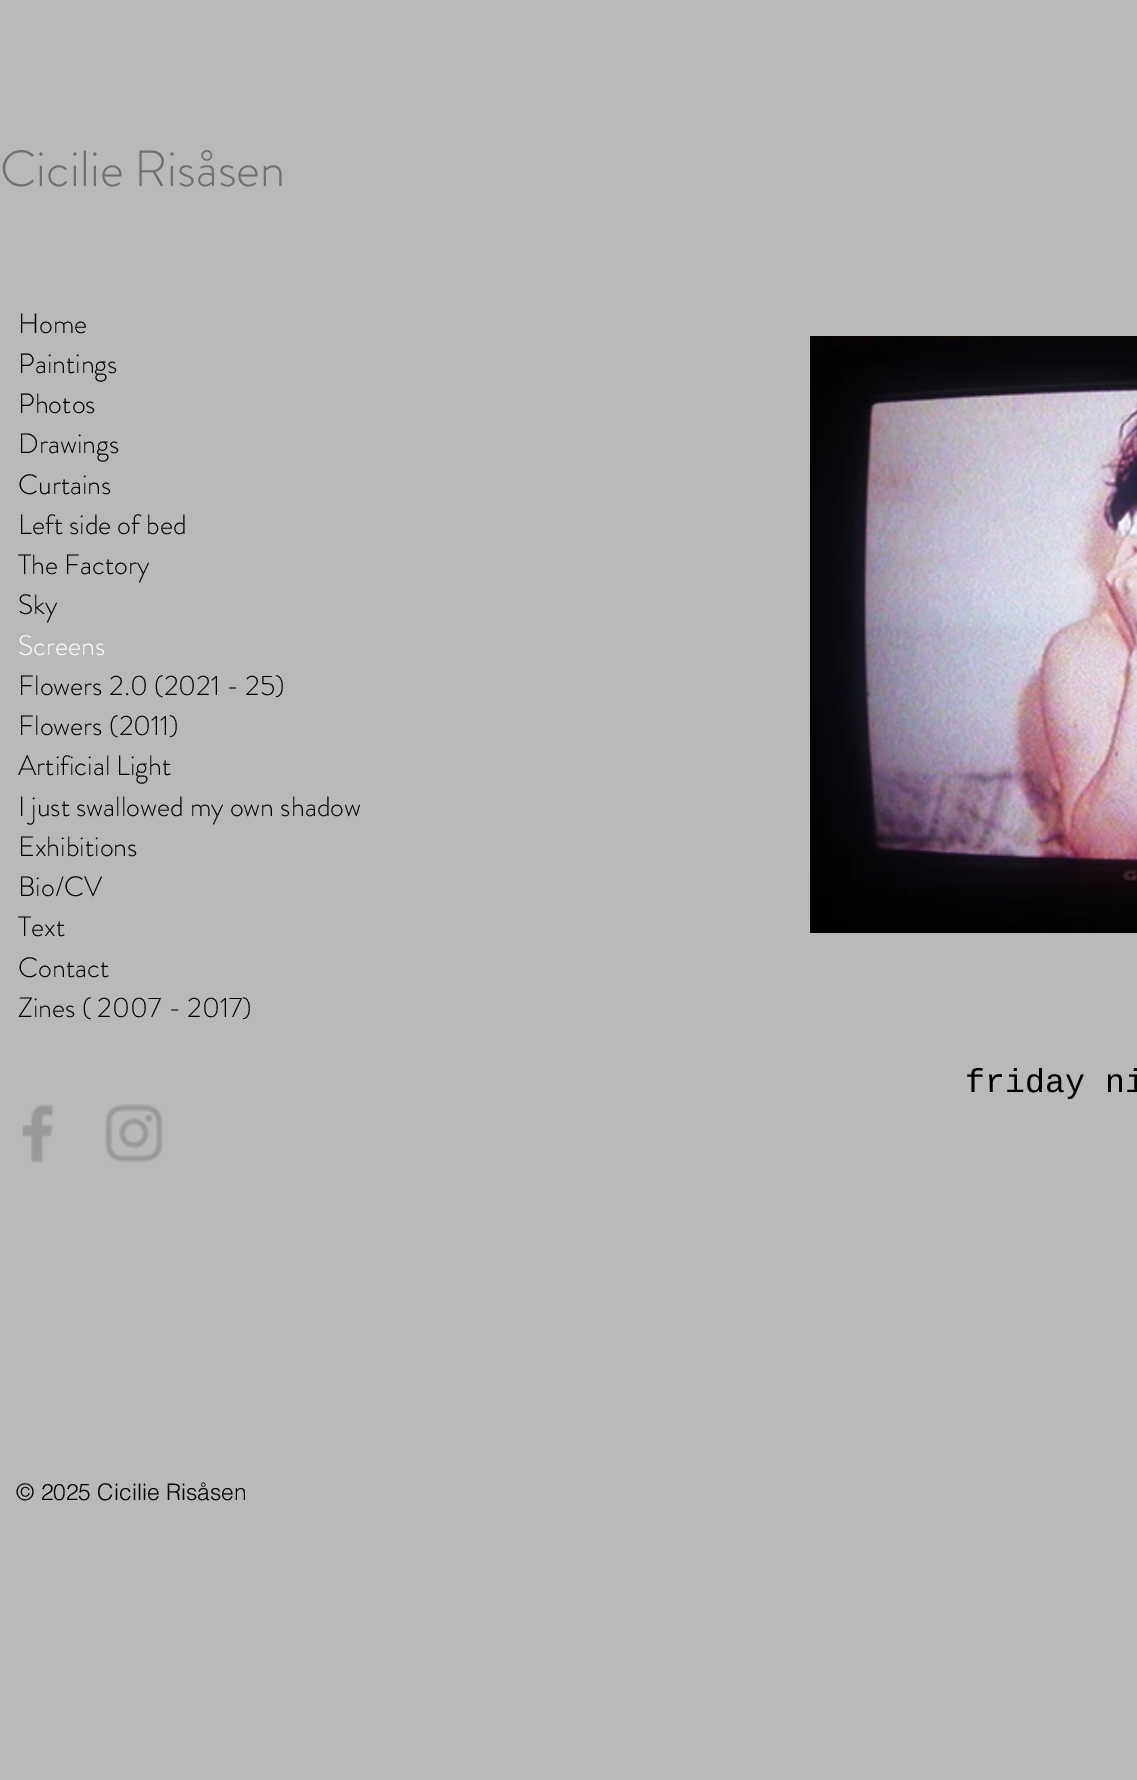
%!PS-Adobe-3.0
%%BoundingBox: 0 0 1137 1780
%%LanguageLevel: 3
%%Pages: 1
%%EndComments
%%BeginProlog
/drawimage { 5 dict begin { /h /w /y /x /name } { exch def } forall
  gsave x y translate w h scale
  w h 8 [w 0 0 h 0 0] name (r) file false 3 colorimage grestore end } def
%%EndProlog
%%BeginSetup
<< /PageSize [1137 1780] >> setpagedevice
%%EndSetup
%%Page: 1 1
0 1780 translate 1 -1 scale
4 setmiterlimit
0.725 setgray
0 0 1137 1780 rectfill
(images/1.raw) 22 1104 31 59 drawimage
(images/2.raw) 105 1104 58 59 drawimage
(images/3.raw) 810 336 327 597 drawimage
/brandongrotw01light-Light [50.75 0 0 -50.75 0 0] selectfont
0.443 0.439 0.439 setrgbcolor
0 186 moveto (Cicilie Risåsen) show
/brandongrotw01light-Light [28 0 0 -28 0 0] selectfont
0 setgray
18 333 moveto (Home) show
18 373 moveto (Paintings) show
18 413 moveto (Photos) show
18 453 moveto (Drawings) show
18 494 moveto (Curtains) show
18 534 moveto (Left side of bed) show
18 574 moveto (The Factory) show
18 614 moveto (Sky) show
1 setgray
18 655 moveto (Screens) show
0 setgray
18 695 moveto (Flowers 2.0 \(2021 - 25\)) show
18 735 moveto (Flowers \(2011\)) show
18 775 moveto (Artificial Light) show
18 816 moveto (I just swallowed my own shadow) show
18 856 moveto (Exhibitions) show
18 896 moveto (Bio/CV) show
18 936 moveto (Text) show
18 977 moveto (Contact) show
18 1017 moveto (Zines \( 2007 - 2017\)) show
/LiberationMono-Regular [33.25 0 0 -33.25 0 0] selectfont
965 1092 moveto (friday ni) show
/helvetica-Light [22.75 0 0 -22.75 0 0] selectfont
16 1500 moveto (© 2025 Cicilie Risåsen) show
showpage
%%EOF
